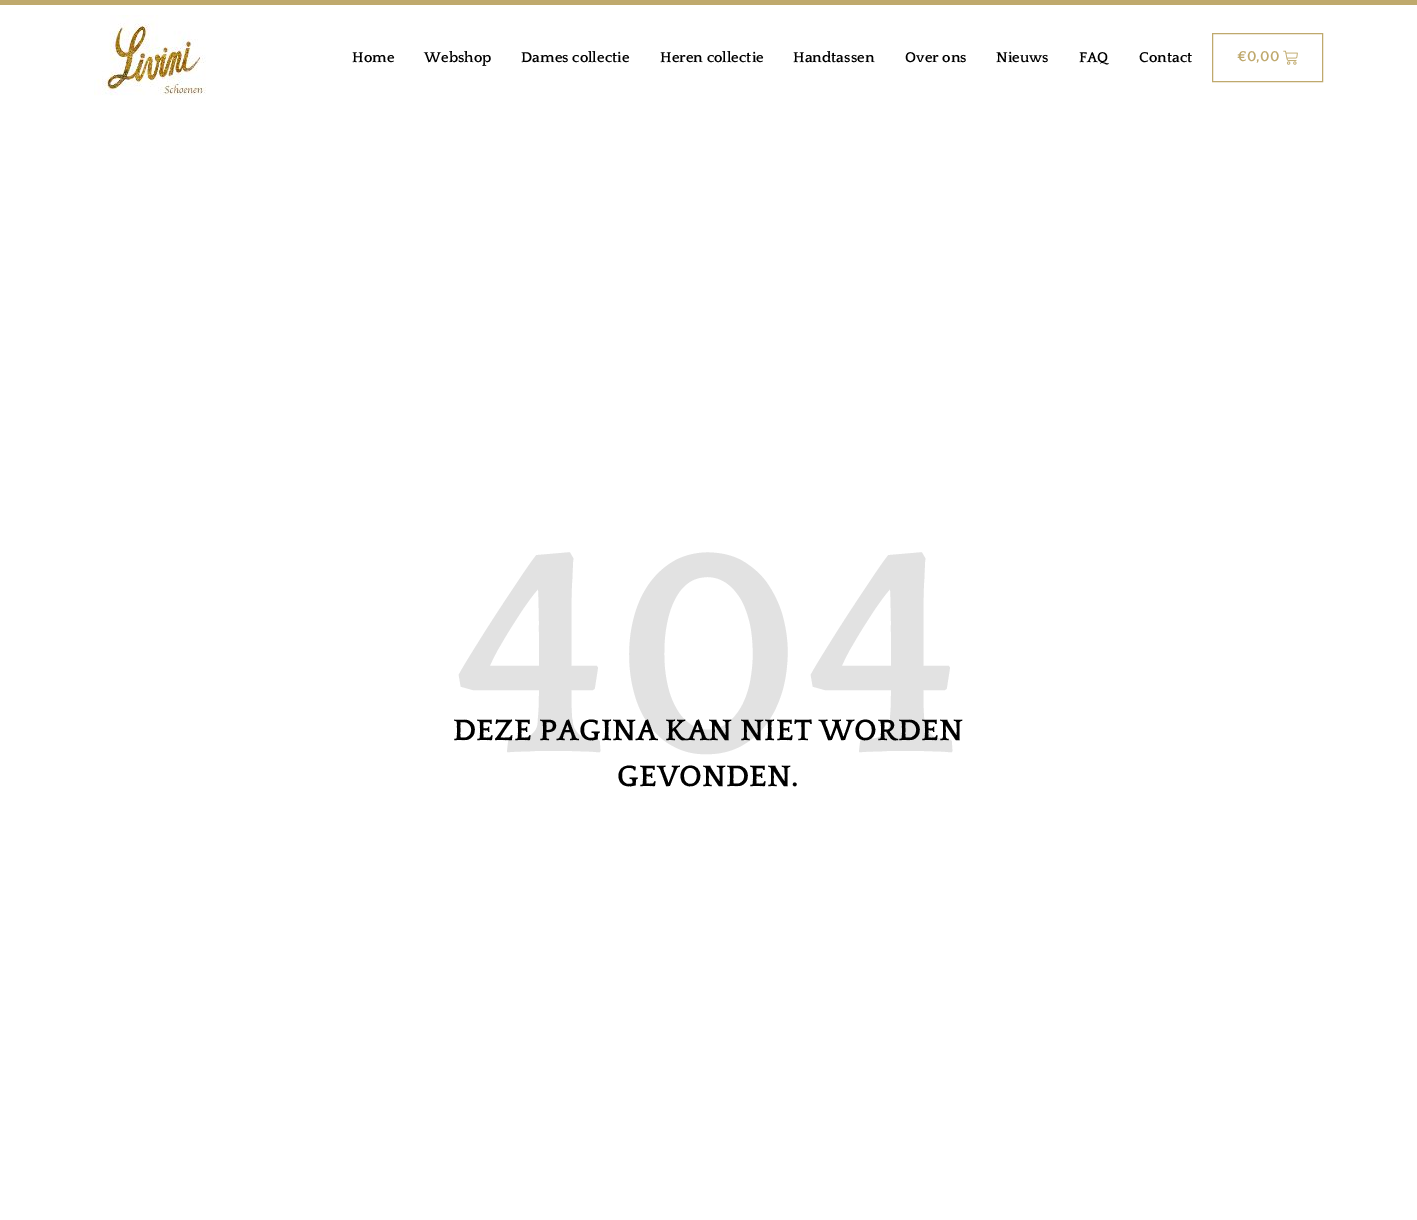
%!PS-Adobe-3.0
%%BoundingBox: 0 0 1417 1220
%%LanguageLevel: 3
%%Pages: 1
%%EndComments
%%BeginProlog
/drawimage { 5 dict begin { /h /w /y /x /name } { exch def } forall
  gsave x y translate w h scale
  w h 8 [w 0 0 h 0 0] name (r) file false 3 colorimage grestore end } def
%%EndProlog
%%BeginSetup
<< /PageSize [1417 1220] >> setpagedevice
%%EndSetup
%%Page: 1 1
0 1220 translate 1 -1 scale
4 setmiterlimit
1 setgray
0 0 1417 1220 rectfill
0.749 0.663 0.427 setrgbcolor
0 0 1417 5 rectfill
(images/1.raw) 94 15 112 81 drawimage
1212.5 33.5 110 48 rectstroke
(images/2.raw) 1283 50 15 15 drawimage
/Quattrocento-Bold [15 0 0 -15 0 0] selectfont
0 setgray
352 62 moveto (Home) show
424 62 moveto (Webshop) show
521 62 moveto (Dames collectie) show
660 62 moveto (Heren collectie) show
793 62 moveto (Handtassen) show
905 62 moveto (Over ons) show
996 62 moveto (Nieuws) show
1079 62 moveto (FAQ) show
1139 62 moveto (Contact) show
0.749 0.663 0.427 setrgbcolor
1237 61 moveto (€0,00) show
/Quattrocento-Bold [299 0 0 -299 0 0] selectfont
0.886 setgray
452 751 moveto (404) show
/Quattrocento-Bold [31 0 0 -31 0 0] selectfont
0 setgray
453 740 moveto (DEZE PAGINA KAN NIET WORDEN) show
617 786 moveto (GEVONDEN.) show
showpage
%%EOF
